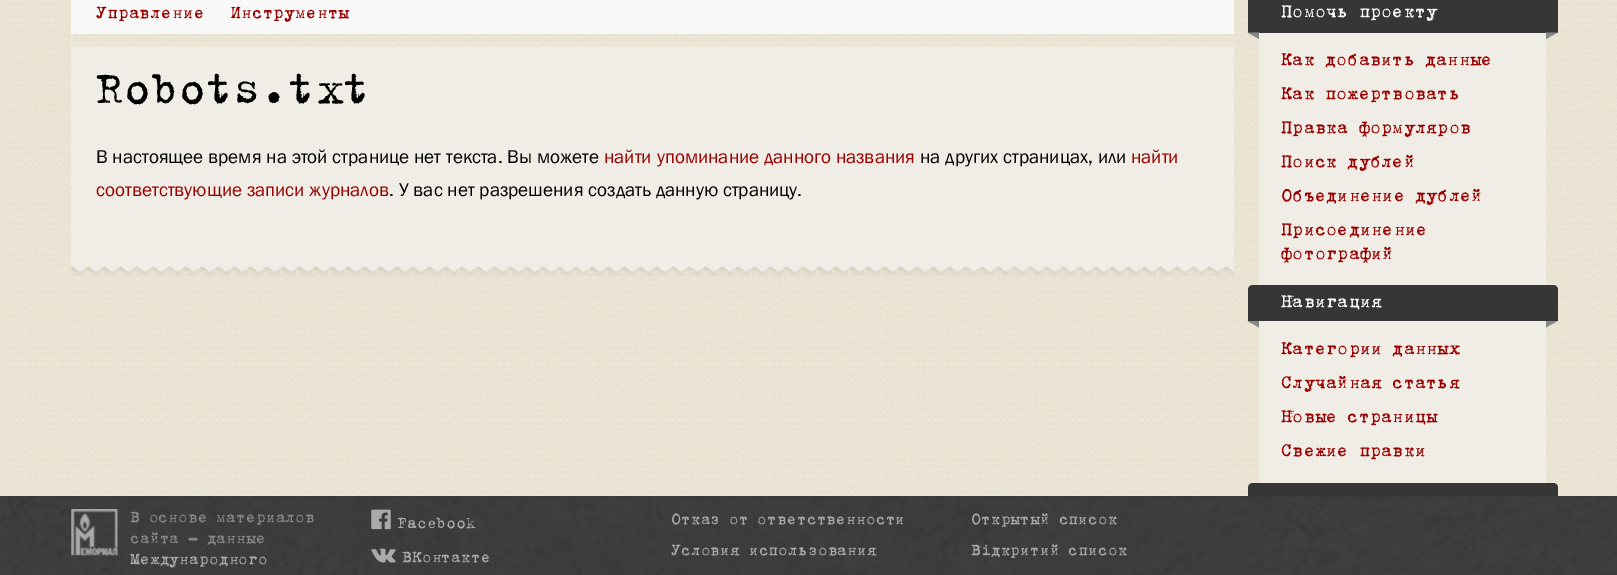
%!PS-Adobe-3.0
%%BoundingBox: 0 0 1617 575
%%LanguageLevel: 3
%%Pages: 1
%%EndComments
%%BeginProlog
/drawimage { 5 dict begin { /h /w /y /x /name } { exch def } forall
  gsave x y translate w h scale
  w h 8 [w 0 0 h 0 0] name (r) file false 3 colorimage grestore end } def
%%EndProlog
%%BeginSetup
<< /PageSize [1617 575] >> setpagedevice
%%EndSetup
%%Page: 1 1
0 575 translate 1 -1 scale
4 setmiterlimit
0.925 0.898 0.843 setrgbcolor
0 0 1617 575 rectfill
(images/1.raw) 0 1 1617 495 drawimage
0.941 0.929 0.902 setrgbcolor
71 46 1163 214 rectfill
0.976 setgray
71 0 1163 46 rectfill
(images/2.raw) 71 34 1163 13 drawimage
(images/3.raw) 71 260 1163 18 drawimage
0.941 0.929 0.902 setrgbcolor
1259 33 287 450 rectfill
0.212 setgray
1248 0 310 33 rectfill
0.533 setgray
newpath 1259 32.5 moveto 1259 39 lineto 1247.5 32.5 lineto closepath fill
newpath 1546 32.5 moveto 1557.5 32.5 lineto 1546 39 lineto closepath fill
0.212 setgray
newpath 1253 285 moveto 1553 285 lineto 1556 285 1558 287 1558 290 curveto 1558 321 lineto 1248 321 lineto 1248 290 lineto 1248 287 1250 285 1253 285 curveto closepath fill
0.533 setgray
newpath 1259 321 moveto 1259 327.5 lineto 1247.5 321 lineto closepath fill
newpath 1546 321 moveto 1557.5 321 lineto 1546 327.5 lineto closepath fill
0.212 setgray
newpath 1253 483 moveto 1553 483 lineto 1556 483 1558 485 1558 488 curveto 1558 519 lineto 1248 519 lineto 1248 488 lineto 1248 485 1250 483 1253 483 curveto closepath fill
0 496 1617 1 rectfill
(images/4.raw) 0 496 1617 79 drawimage
(images/5.raw) 71 509 47 47 drawimage
(images/6.raw) 371 509 20 21 drawimage
(images/7.raw) 371 548 25 15 drawimage
/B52-Regular [19.25 0 0 -19.25 0 0] selectfont
0.6 0 0 setrgbcolor
96 18 moveto (Управление) show
230 18 moveto (Инструменты) show
/B52-Regular [48.75 0 0 -48.75 0 0] selectfont
0 setgray
96 103 moveto (Robots.txt) show
/FranklinGothic-Regular [19.25 0 0 -19.25 0 0] selectfont
96 163 moveto (В настоящее время на этой странице нет текста. Вы можете) show
0.6 0 0 setrgbcolor
604 163 moveto (найти упоминание данного названия) show
0 setgray
920 163 moveto (на других страницах, или) show
0.6 0 0 setrgbcolor
1131 163 moveto (найти) show
96 196 moveto (соответствующие записи журналов) show
0 setgray
389 196 moveto (. У вас нет разрешения создать данную страницу.) show
/B52-Regular [20 0 0 -20 0 0] selectfont
1 setgray
1281 17 moveto (Помочь проекту) show
0.6 0 0 setrgbcolor
1281 65 moveto (Как добавить данные) show
1281 99 moveto (Как пожертвовать) show
1281 133 moveto (Правка формуляров) show
1281 167 moveto (Поиск дублей) show
1281 201 moveto (Объединение дублей) show
1281 235 moveto (Присоединение) show
1281 259 moveto (фотографий) show
1 setgray
1281 307 moveto (Навигация) show
0.6 0 0 setrgbcolor
1281 354 moveto (Категории данных) show
1281 388 moveto (Случайная статья) show
1281 422 moveto (Новые страницы) show
1281 456 moveto (Свежие правки) show
/B52-Regular [17.5 0 0 -17.5 0 0] selectfont
0.533 setgray
130 522 moveto (В основе материалов) show
130 543 moveto (сайта — данные) show
0.667 setgray
130 564 moveto (Международного) show
397 528 moveto (Facebook) show
402 562 moveto (ВКонтакте) show
671 524 moveto (Отказ от ответственности) show
671 555 moveto (Условия использования) show
971 524 moveto (Открытый список) show
971 555 moveto (Відкритий список) show
showpage
%%EOF
